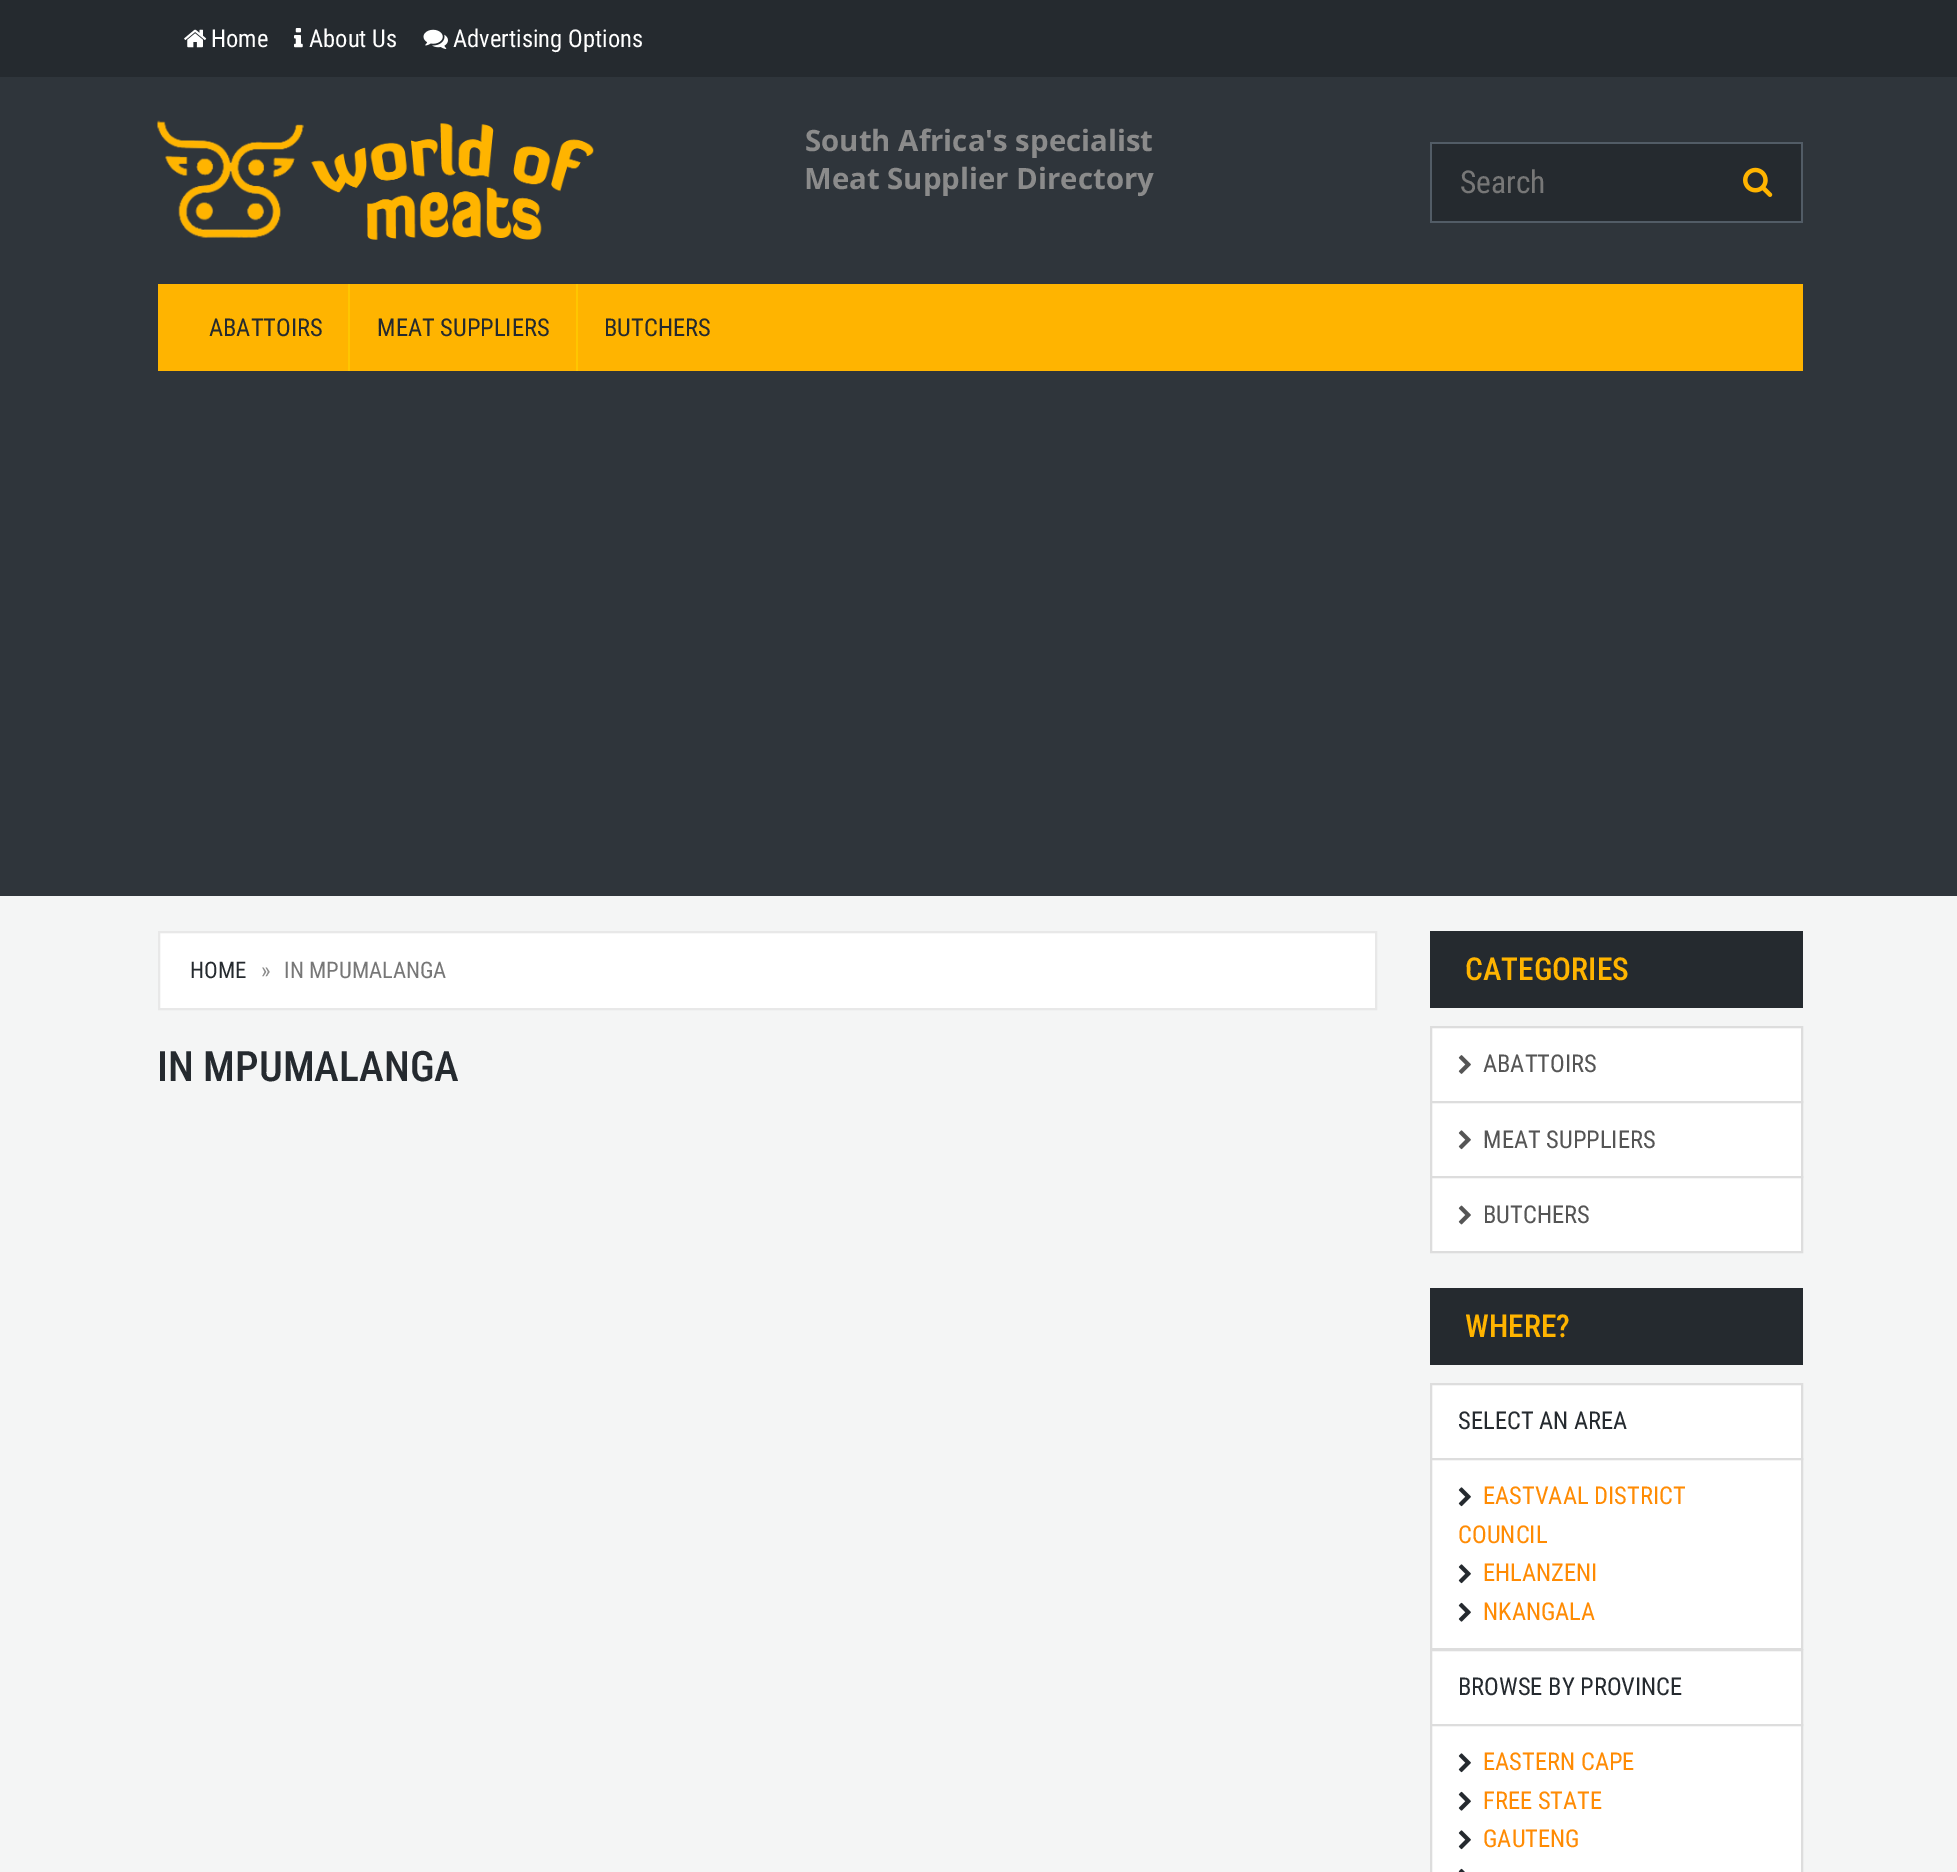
%!PS-Adobe-3.0
%%BoundingBox: 0 0 1957 1872
%%LanguageLevel: 3
%%Pages: 1
%%EndComments
%%BeginProlog
/drawimage { 5 dict begin { /h /w /y /x /name } { exch def } forall
  gsave x y translate w h scale
  w h 8 [w 0 0 h 0 0] name (r) file false 3 colorimage grestore end } def
%%EndProlog
%%BeginSetup
<< /PageSize [1957 1872] >> setpagedevice
%%EndSetup
%%Page: 1 1
0 1872 translate 1 -1 scale
4 setmiterlimit
0.957 0.961 0.961 setrgbcolor
0 0 1957 1872 rectfill
0.184 0.208 0.231 setrgbcolor
0 77 1957 819 rectfill
0.145 0.165 0.184 setrgbcolor
0 0 1957 77 rectfill
(images/1.raw) 184 29 23 19 drawimage
(images/2.raw) 294 28 9 20 drawimage
(images/3.raw) 423 29 25 20 drawimage
(images/4.raw) 157 120 437 120 drawimage
1432 144 369 77 rectfill
0.322 0.361 0.4 setrgbcolor
1430 142 373 2 rectfill
1801 142 2 80 rectfill
1430 221 373 2 rectfill
(images/5.raw) 1743 167 30 30 drawimage
1430 142 2 80 rectfill
1 0.706 0 setrgbcolor
158 284 1645 87 rectfill
1 0.776 0 setrgbcolor
348 284 2 87 rectfill
576 284 2 87 rectfill
1 setgray
newpath 159 932 moveto 1376 932 lineto 1376 1009 lineto 159 1009 lineto closepath gsave fill grestore
0.91 setgray
2 setlinewidth
stroke
0.145 0.165 0.184 setrgbcolor
1430 931 373 77 rectfill
1 setgray
newpath 1431 1027 moveto 1802 1027 lineto 1802 1102 lineto 1431 1102 lineto closepath gsave fill grestore
0.867 setgray
stroke
(images/6.raw) 1458 1055 13 19 drawimage
1 setgray
newpath 1431 1102 moveto 1802 1102 lineto 1802 1177 lineto 1431 1177 lineto closepath gsave fill grestore
0.867 setgray
stroke
(images/7.raw) 1458 1130 13 20 drawimage
1 setgray
newpath 1431 1177 moveto 1802 1177 lineto 1802 1252 lineto 1431 1252 lineto closepath gsave fill grestore
0.867 setgray
stroke
(images/8.raw) 1458 1205 13 20 drawimage
0.145 0.165 0.184 setrgbcolor
1430 1288 373 77 rectfill
1 setgray
newpath 1431 1384 moveto 1802 1384 lineto 1802 1459 lineto 1431 1459 lineto closepath gsave fill grestore
0.867 setgray
stroke
1 setgray
newpath 1431 1459 moveto 1802 1459 lineto 1802 1649 lineto 1431 1649 lineto closepath gsave fill grestore
0.867 setgray
stroke
(images/9.raw) 1458 1487 13 20 drawimage
(images/9.raw) 1458 1564 13 20 drawimage
(images/10.raw) 1458 1602 13 20 drawimage
1 setgray
newpath 1431 1650 moveto 1802 1650 lineto 1802 1725 lineto 1431 1725 lineto closepath gsave fill grestore
0.867 setgray
stroke
1 setgray
newpath 1431 1725 moveto 1802 1725 lineto 1802 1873 lineto 1431 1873 lineto closepath gsave fill grestore
0.867 setgray
stroke
(images/9.raw) 1458 1753 13 20 drawimage
(images/10.raw) 1458 1791 13 20 drawimage
(images/9.raw) 1458 1830 13 20 drawimage
(images/11.raw) 1458 1868 7 4 drawimage
/RobotoCondensed-Regular [24.5 0 0 -24.5 0 0] selectfont
1 setgray
211 47 moveto (Home) show
309 47 moveto (About Us) show
453 47 moveto (Advertising Options) show
/OpenSans-Bold [29.4 0 0 -29.4 0 0] selectfont
0.545 setgray
805 151 moveto (South Africa's specialist) show
804 189 moveto (Meat Supplier Directory) show
/RobotoCondensed-Regular [31.5 0 0 -31.5 0 0] selectfont
0.467 setgray
1460 193 moveto (Search) show
/RobotoCondensed-Regular [24.5 0 0 -24.5 0 0] selectfont
0.145 0.165 0.184 setrgbcolor
209 336 moveto (ABATTOIRS) show
377 336 moveto (MEAT SUPPLIERS) show
604 336 moveto (BUTCHERS) show
/RobotoCondensed-Regular [22.75 0 0 -22.75 0 0] selectfont
190 978 moveto (HOME) show
0.545 setgray
261 978 moveto (») show
0.467 setgray
284 978 moveto (IN MPUMALANGA) show
/RobotoCondensed-Medium [42 0 0 -42 0 0] selectfont
0.145 0.165 0.184 setrgbcolor
157 1081 moveto (IN MPUMALANGA) show
/RobotoCondensed-Medium [31.5 0 0 -31.5 0 0] selectfont
1 0.706 0 setrgbcolor
1465 980 moveto (CATEGORIES) show
/RobotoCondensed-Regular [24.5 0 0 -24.5 0 0] selectfont
0.333 setgray
1483 1072 moveto (ABATTOIRS) show
1483 1148 moveto (MEAT SUPPLIERS) show
1483 1223 moveto (BUTCHERS) show
/RobotoCondensed-Medium [31.5 0 0 -31.5 0 0] selectfont
1 0.706 0 setrgbcolor
1465 1337 moveto (WHERE?) show
/RobotoCondensed-Regular [24.5 0 0 -24.5 0 0] selectfont
0.145 0.165 0.184 setrgbcolor
1458 1429 moveto (SELECT AN AREA) show
1 0.545 0.012 setrgbcolor
1483 1504 moveto (EASTVAAL DISTRICT) show
1458 1543 moveto (COUNCIL) show
1483 1581 moveto (EHLANZENI) show
1483 1620 moveto (NKANGALA) show
0.145 0.165 0.184 setrgbcolor
1458 1695 moveto (BROWSE BY PROVINCE) show
1 0.545 0.012 setrgbcolor
1483 1770 moveto (EASTERN CAPE) show
1483 1809 moveto (FREE STATE) show
1483 1847 moveto (GAUTENG) show
showpage
%%EOF
